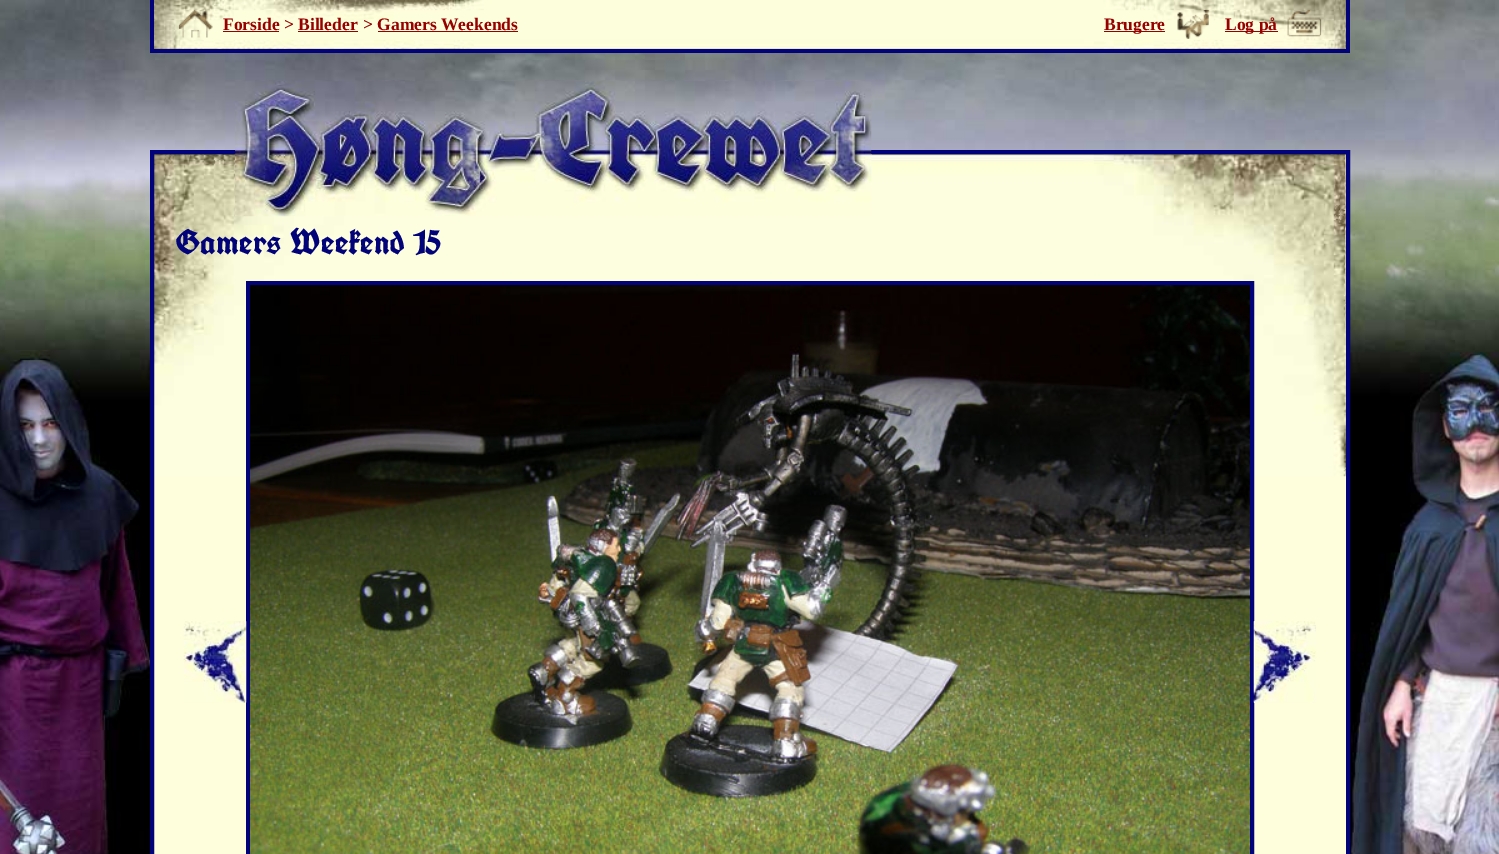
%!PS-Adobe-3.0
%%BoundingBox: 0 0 1499 854
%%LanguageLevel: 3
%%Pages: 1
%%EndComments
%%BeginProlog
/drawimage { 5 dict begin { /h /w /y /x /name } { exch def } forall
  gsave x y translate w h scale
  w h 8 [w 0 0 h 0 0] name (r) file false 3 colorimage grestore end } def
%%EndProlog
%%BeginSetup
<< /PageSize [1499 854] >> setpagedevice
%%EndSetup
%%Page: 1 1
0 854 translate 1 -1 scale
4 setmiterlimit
1 setgray
0 0 1499 854 rectfill
(images/1.raw) 0 0 1499 353 drawimage
(images/2.raw) 0 350 150 504 drawimage
(images/3.raw) 1350 352 149 502 drawimage
(images/4.raw) 154 0 1192 49 drawimage
0.008 0.012 0.475 setrgbcolor
1346 0 4 53 rectfill
150 49 1200 4 rectfill
150 0 4 53 rectfill
(images/5.raw) 178 10 35 28 drawimage
0.588 0 0 setrgbcolor
223 31 56 1 rectfill
378 31 140 1 rectfill
1104 31 61 1 rectfill
(images/6.raw) 1177 10 32 29 drawimage
1225 31 53 1 rectfill
(images/7.raw) 1287 10 35 27 drawimage
298 31 60 1 rectfill
0.996 0.996 0.863 setrgbcolor
154 476 1192 378 rectfill
(images/8.raw) 154 154 1192 323 drawimage
0.008 0.012 0.475 setrgbcolor
4 setlinewidth
152 152 1196 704 rectstroke
(images/9.raw) 235 81 637 136 drawimage
248 283 1004 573 rectstroke
(images/10.raw) 183 621 64 82 drawimage
(images/11.raw) 250 285 1000 569 drawimage
(images/12.raw) 1253 621 63 82 drawimage
/LiberationSerif-Bold [17.5 0 0 -17.5 0 0] selectfont
0.588 0 0 setrgbcolor
223 30 moveto (Forside > Billeder) show
363 30 moveto (> Gamers Weekends) show
1104 30 moveto (Brugere) show
1225 30 moveto (Log på) show
/UnifrakturCook-Bold [35 0 0 -35 0 0] selectfont
0.008 0.012 0.475 setrgbcolor
175 255 moveto (Gamers Weekend 15) show
showpage
%%EOF
